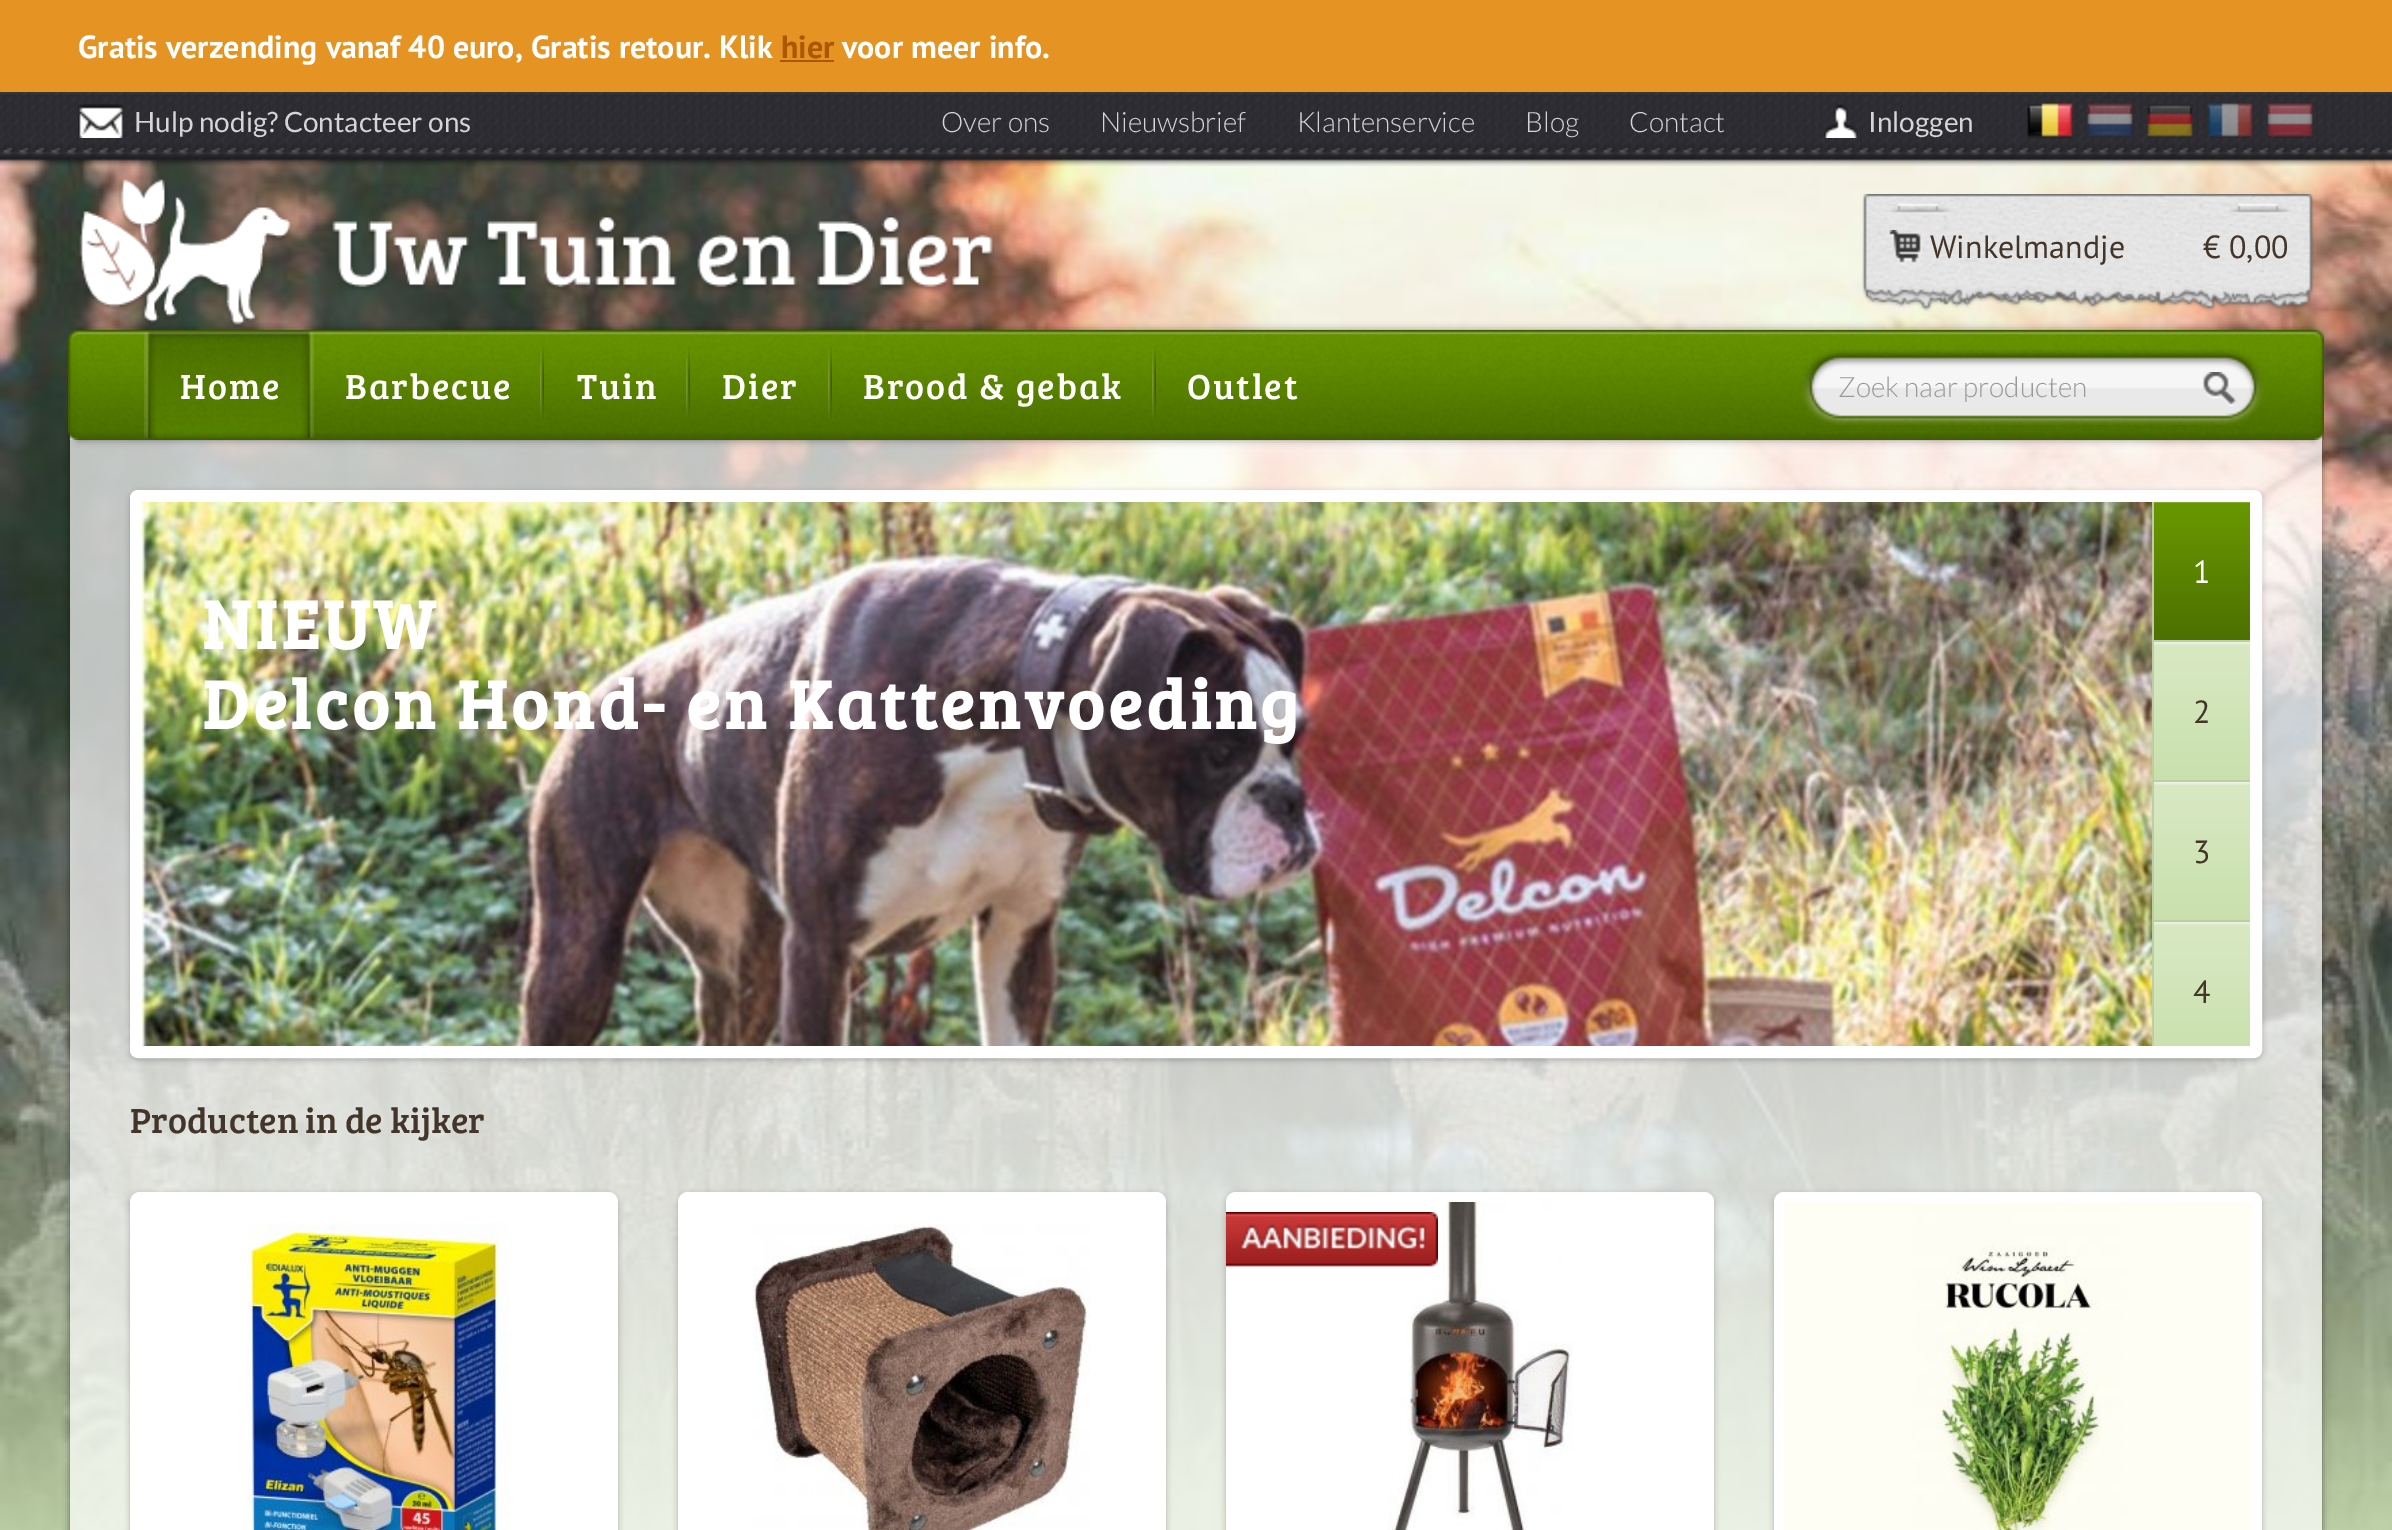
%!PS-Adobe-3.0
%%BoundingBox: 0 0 2392 1530
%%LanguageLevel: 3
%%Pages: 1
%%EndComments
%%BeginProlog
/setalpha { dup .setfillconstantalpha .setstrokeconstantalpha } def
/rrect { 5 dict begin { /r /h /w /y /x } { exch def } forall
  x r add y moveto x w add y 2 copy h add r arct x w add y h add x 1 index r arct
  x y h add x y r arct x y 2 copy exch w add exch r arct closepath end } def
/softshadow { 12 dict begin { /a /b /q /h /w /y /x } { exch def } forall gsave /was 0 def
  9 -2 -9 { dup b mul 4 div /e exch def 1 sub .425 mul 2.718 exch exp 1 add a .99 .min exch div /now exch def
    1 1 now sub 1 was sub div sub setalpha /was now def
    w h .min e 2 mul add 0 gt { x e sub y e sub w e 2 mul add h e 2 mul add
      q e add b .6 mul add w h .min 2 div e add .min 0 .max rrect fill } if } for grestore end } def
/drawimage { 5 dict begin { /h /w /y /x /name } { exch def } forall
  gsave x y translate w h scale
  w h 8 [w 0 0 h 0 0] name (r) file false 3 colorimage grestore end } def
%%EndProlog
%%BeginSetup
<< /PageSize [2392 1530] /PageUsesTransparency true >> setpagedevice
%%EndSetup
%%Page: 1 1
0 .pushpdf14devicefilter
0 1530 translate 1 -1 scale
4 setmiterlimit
0.898 0.58 0.137 setrgbcolor
0 0 2392 1530 rectfill
0.675 0.341 0 setrgbcolor
780 60 54 2 rectfill
(images/1.raw) 0 159 2392 1371 drawimage
(images/2.raw) 0 92 2392 74 drawimage
(images/3.raw) 78 104 46 34 drawimage
(images/4.raw) 1824 104 34 34 drawimage
(images/5.raw) 2027 103 46 36 drawimage
(images/6.raw) 2087 103 46 35 drawimage
(images/7.raw) 2147 104 46 34 drawimage
(images/8.raw) 2207 103 46 35 drawimage
(images/9.raw) 2267 103 46 35 drawimage
(images/10.raw) 79 179 915 149 drawimage
(images/11.raw) 1862 194 452 118 drawimage
(images/12.raw) 1889 230 33 35 drawimage
gsave
newpath 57 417 moveto 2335 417 lineto 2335 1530 lineto 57 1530 lineto closepath 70 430 moveto 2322 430 lineto 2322 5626 lineto 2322 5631.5 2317.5 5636 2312 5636 curveto 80 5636 lineto 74.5 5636 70 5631.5 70 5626 curveto closepath eoclip newpath
0 setgray
70 430 2252 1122 10 4 0.5 softshadow
grestore
0.7 setalpha
1 setgray
70 430 2252 1100 rectfill
1 setalpha
0 setgray
78 330 2236 110 0 4 0.4 softshadow
(images/13.raw) 78 330 2236 110 drawimage
(images/14.raw) 68 330 10 110 drawimage
(images/15.raw) 144 331 12 108 drawimage
(images/16.raw) 156 331 158 108 drawimage
(images/17.raw) 540 346 4 74 drawimage
(images/18.raw) 686 346 4 74 drawimage
(images/19.raw) 828 346 4 74 drawimage
(images/20.raw) 1152 346 4 74 drawimage
(images/21.raw) 2314 330 10 110 drawimage
(images/22.raw) 1801 349 463 76 drawimage
(images/23.raw) 2202 372 34 34 drawimage
130 492 2132 568 8 3 0.25 softshadow
1 setgray
12 setlinewidth
136 496 2120 556 2 rrect stroke
(images/24.raw) 142 502 2010 544 drawimage
(images/25.raw) 2154 502 96 138 drawimage
0.741 0.808 0.655 setrgbcolor
2152 640 98 2 rectfill
2152 502 2 140 rectfill
(images/26.raw) 2154 642 96 138 drawimage
2152 780 98 2 rectfill
2152 642 2 140 rectfill
(images/26.raw) 2154 782 96 138 drawimage
2152 920 98 2 rectfill
2152 782 2 264 rectfill
(images/27.raw) 2154 922 96 124 drawimage
0 setgray
130 1194 488 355 10 3 0.25 softshadow
1 setgray
130 1192 488 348 10 rrect fill
(images/28.raw) 248 1223 262 307 drawimage
0 setgray
678 1194 488 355 10 3 0.25 softshadow
1 setgray
678 1192 488 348 10 rrect fill
(images/29.raw) 753 1224 337 306 drawimage
0 setgray
1226 1194 488 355 10 3 0.25 softshadow
1 setgray
1226 1192 488 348 10 rrect fill
(images/30.raw) 1388 1202 185 328 drawimage
(images/31.raw) 1226 1212 212 55 drawimage
0 setgray
1774 1194 488 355 10 3 0.25 softshadow
1 setgray
1774 1192 488 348 10 rrect fill
(images/32.raw) 1784 1202 468 328 drawimage
/PTSans-Bold [32 0 0 -32 0 0] selectfont
78 58 moveto (Gratis verzending vanaf 40 euro, Gratis retour. Klik) show
0.675 0.341 0 setrgbcolor
781 58 moveto (hier) show
1 setgray
842 58 moveto (voor meer info.) show
/Lato-Regular [28 0 0 -28 0 0] selectfont
0.835 0.835 0.839 setrgbcolor
134 132 moveto (Hulp nodig? Contacteer ons) show
/Lato-Light [28 0 0 -28 0 0] selectfont
941 132 moveto (Over ons) show
1100 132 moveto (Nieuwsbrief) show
1297 132 moveto (Klantenservice) show
1525 132 moveto (Blog) show
1629 132 moveto (Contact) show
/Lato-Regular [28 0 0 -28 0 0] selectfont
1868 132 moveto (Inloggen) show
/PTSans-Regular [32 0 0 -32 0 0] selectfont
0.263 0.208 0.165 setrgbcolor
1930 258 moveto (Winkelmandje) show
2203 258 moveto (€ 0,00) show
/BreeSerif-Regular [36 0 0 -36 0 0] selectfont
1 setgray
180 399 moveto 2 0 (Home) ashow
345 399 moveto 2 0 (Barbecue) ashow
577 399 moveto 2 0 (Tuin) ashow
722 399 moveto 2 0 (Dier) ashow
863 399 moveto 2 0 (Brood & gebak) ashow
1187 399 moveto 2 0 (Outlet) ashow
/Lato-Light [28 0 0 -28 0 0] selectfont
0.6 setgray
1838 397 moveto (Zoek naar producten) show
/PTSans-Regular [32 0 0 -32 0 0] selectfont
1 setgray
2193 583 moveto (1) show
/BreeSerif-Bold [70 0 0 -70 0 0] selectfont
202 649 moveto 4 0 (NIEUW) ashow
202 729 moveto 4 0 (Delcon Hond- en Kattenvoeding) ashow
/PTSans-Regular [32 0 0 -32 0 0] selectfont
0.263 0.208 0.165 setrgbcolor
2193 723 moveto (2) show
2193 863 moveto (3) show
2193 1003 moveto (4) show
/BreeSerif-Regular [36 0 0 -36 0 0] selectfont
130 1133 moveto (Producten in de kijker) show
.poppdf14devicefilter showpage
%%EOF
